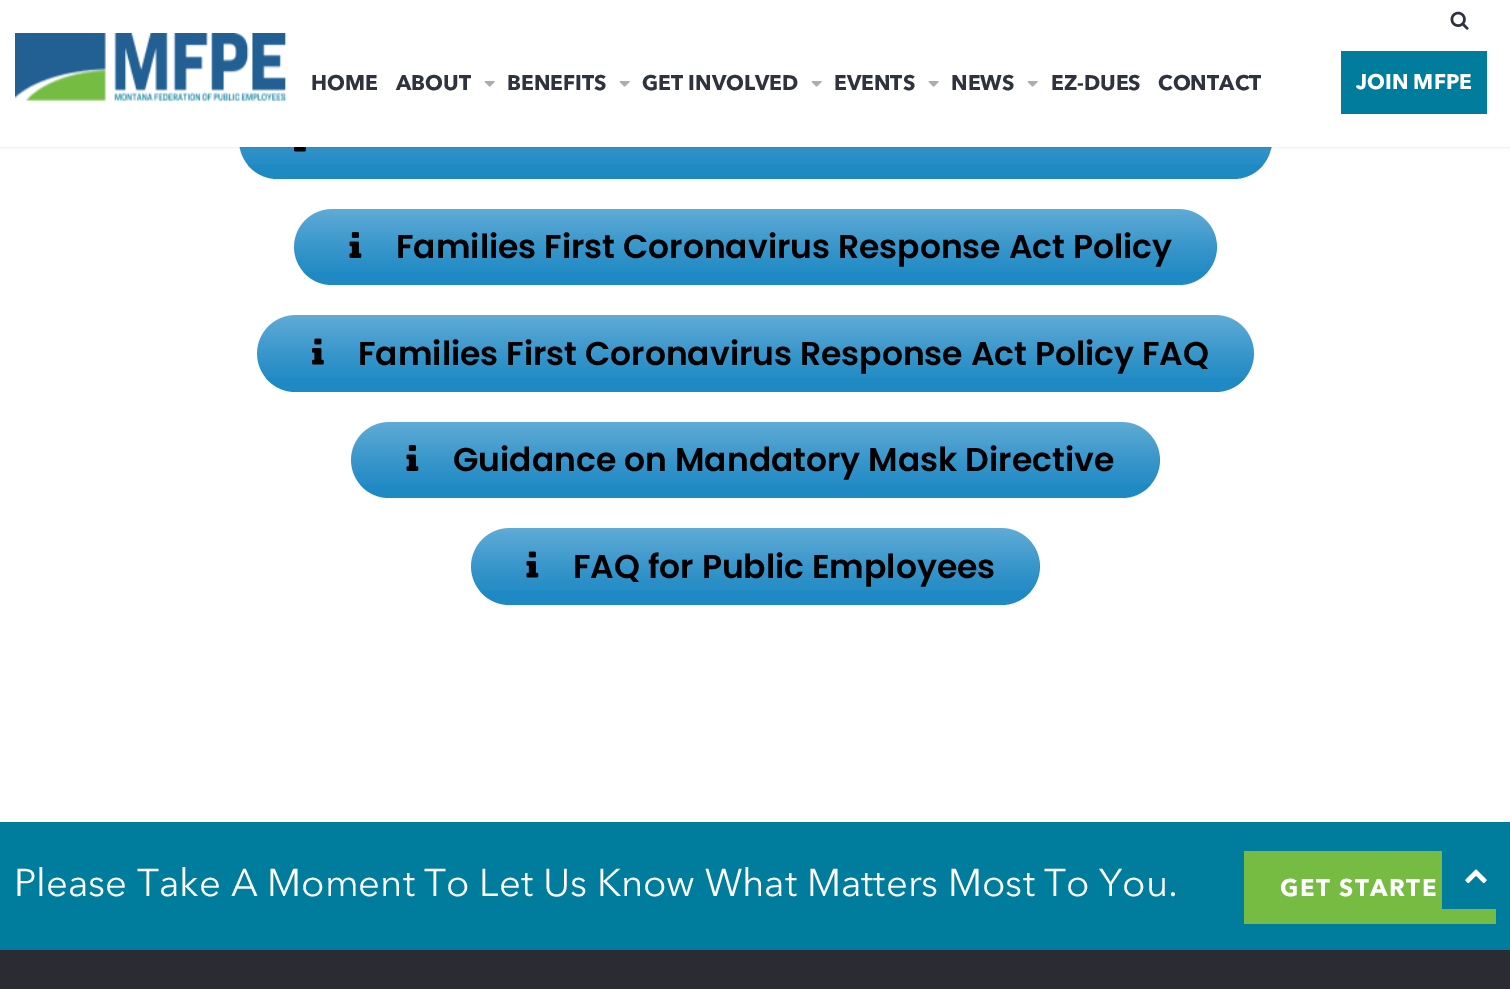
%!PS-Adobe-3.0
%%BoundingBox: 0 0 1510 989
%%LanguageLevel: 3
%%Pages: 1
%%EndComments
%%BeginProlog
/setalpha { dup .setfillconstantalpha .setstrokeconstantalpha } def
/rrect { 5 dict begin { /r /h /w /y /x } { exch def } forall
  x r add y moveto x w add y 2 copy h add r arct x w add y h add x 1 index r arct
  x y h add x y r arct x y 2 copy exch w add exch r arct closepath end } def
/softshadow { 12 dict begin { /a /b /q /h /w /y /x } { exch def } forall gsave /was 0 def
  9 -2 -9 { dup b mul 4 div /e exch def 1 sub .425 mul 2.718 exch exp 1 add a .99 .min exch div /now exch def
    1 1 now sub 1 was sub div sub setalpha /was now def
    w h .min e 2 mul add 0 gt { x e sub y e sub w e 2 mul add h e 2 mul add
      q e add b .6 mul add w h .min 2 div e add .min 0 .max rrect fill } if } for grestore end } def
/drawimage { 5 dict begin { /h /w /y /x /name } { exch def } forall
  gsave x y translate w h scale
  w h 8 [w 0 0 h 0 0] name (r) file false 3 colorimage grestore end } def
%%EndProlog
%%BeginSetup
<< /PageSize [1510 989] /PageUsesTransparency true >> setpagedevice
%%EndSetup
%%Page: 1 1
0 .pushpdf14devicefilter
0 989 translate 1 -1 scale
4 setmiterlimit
1 setgray
0 0 1510 989 rectfill
0.122 0.537 0.769 setrgbcolor
239 102 1033 77 38.5 rrect fill
(images/4.raw) 239 147 1032 18 drawimage
(images/5.raw) 294 147 12 5 drawimage
0 setgray
0 0 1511 147 0 1.5 0.1 softshadow
1 setgray
0 0 1510 147 rectfill
(images/1.raw) 1450 11 19 19 drawimage
(images/2.raw) 15 33 271 68 drawimage
(images/3.raw) 484 81 11 6 drawimage
(images/3.raw) 619 81 11 6 drawimage
(images/3.raw) 811 81 11 6 drawimage
(images/3.raw) 928 81 11 6 drawimage
(images/3.raw) 1027 81 11 6 drawimage
0 0.486 0.616 setrgbcolor
1341 51 146 63 rectfill
0.122 0.537 0.769 setrgbcolor
294 209 923 76 38 rrect fill
(images/6.raw) 294 209 923 63 drawimage
(images/7.raw) 349 232 13 26 drawimage
257 315 997 77 38.5 rrect fill
(images/8.raw) 257 315 997 63 drawimage
(images/9.raw) 312 338 12 27 drawimage
351 422 809 76 38 rrect fill
(images/10.raw) 351 422 809 63 drawimage
(images/7.raw) 406 445 13 26 drawimage
471 528 569 77 38.5 rrect fill
(images/11.raw) 471 528 569 63 drawimage
(images/12.raw) 526 551 13 27 drawimage
0.169 0.173 0.2 setrgbcolor
0 950 1510 39 rectfill
0 0.486 0.616 setrgbcolor
0 822 1510 128 rectfill
0.463 0.737 0.263 setrgbcolor
1244 851 252 73 rectfill
0 0.486 0.616 setrgbcolor
1442 851 54 58 rectfill
(images/13.raw) 1465 869 22 15 drawimage
/AvenirNext-Bold [21 0 0 -21 0 0] selectfont
0.18 0.2 0.239 setrgbcolor
311 90 moveto (HOME) show
396 90 moveto (ABOUT) show
507 90 moveto (BENEFITS) show
642 90 moveto (GET INVOLVED) show
834 90 moveto (EVENTS) show
951 90 moveto (NEWS) show
1051 90 moveto (EZ-DUES) show
1158 90 moveto (CONTACT) show
1 setgray
1356 89 moveto (JOIN MFPE) show
/Poppins-SemiBold [33 0 0 -33 0 0] selectfont
0.008 0 0 setrgbcolor
396 258 moveto (Families First Coronavirus Response Act Policy) show
358 365 moveto (Families First Coronavirus Response Act Policy FAQ) show
453 471 moveto (Guidance on Mandatory Mask Directive) show
573 578 moveto (FAQ for Public Employees) show
/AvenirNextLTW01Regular-Regular [38.4 0 0 -38.4 0 0] selectfont
1 setgray
14 896 moveto (Please Take A Moment To Let Us Know What Matters Most To You.) show
/AvenirNext-Bold [24 0 0 -24 0 0] selectfont
1280 896 moveto 1.5 0 (GET STARTE) ashow
.poppdf14devicefilter showpage
%%EOF
